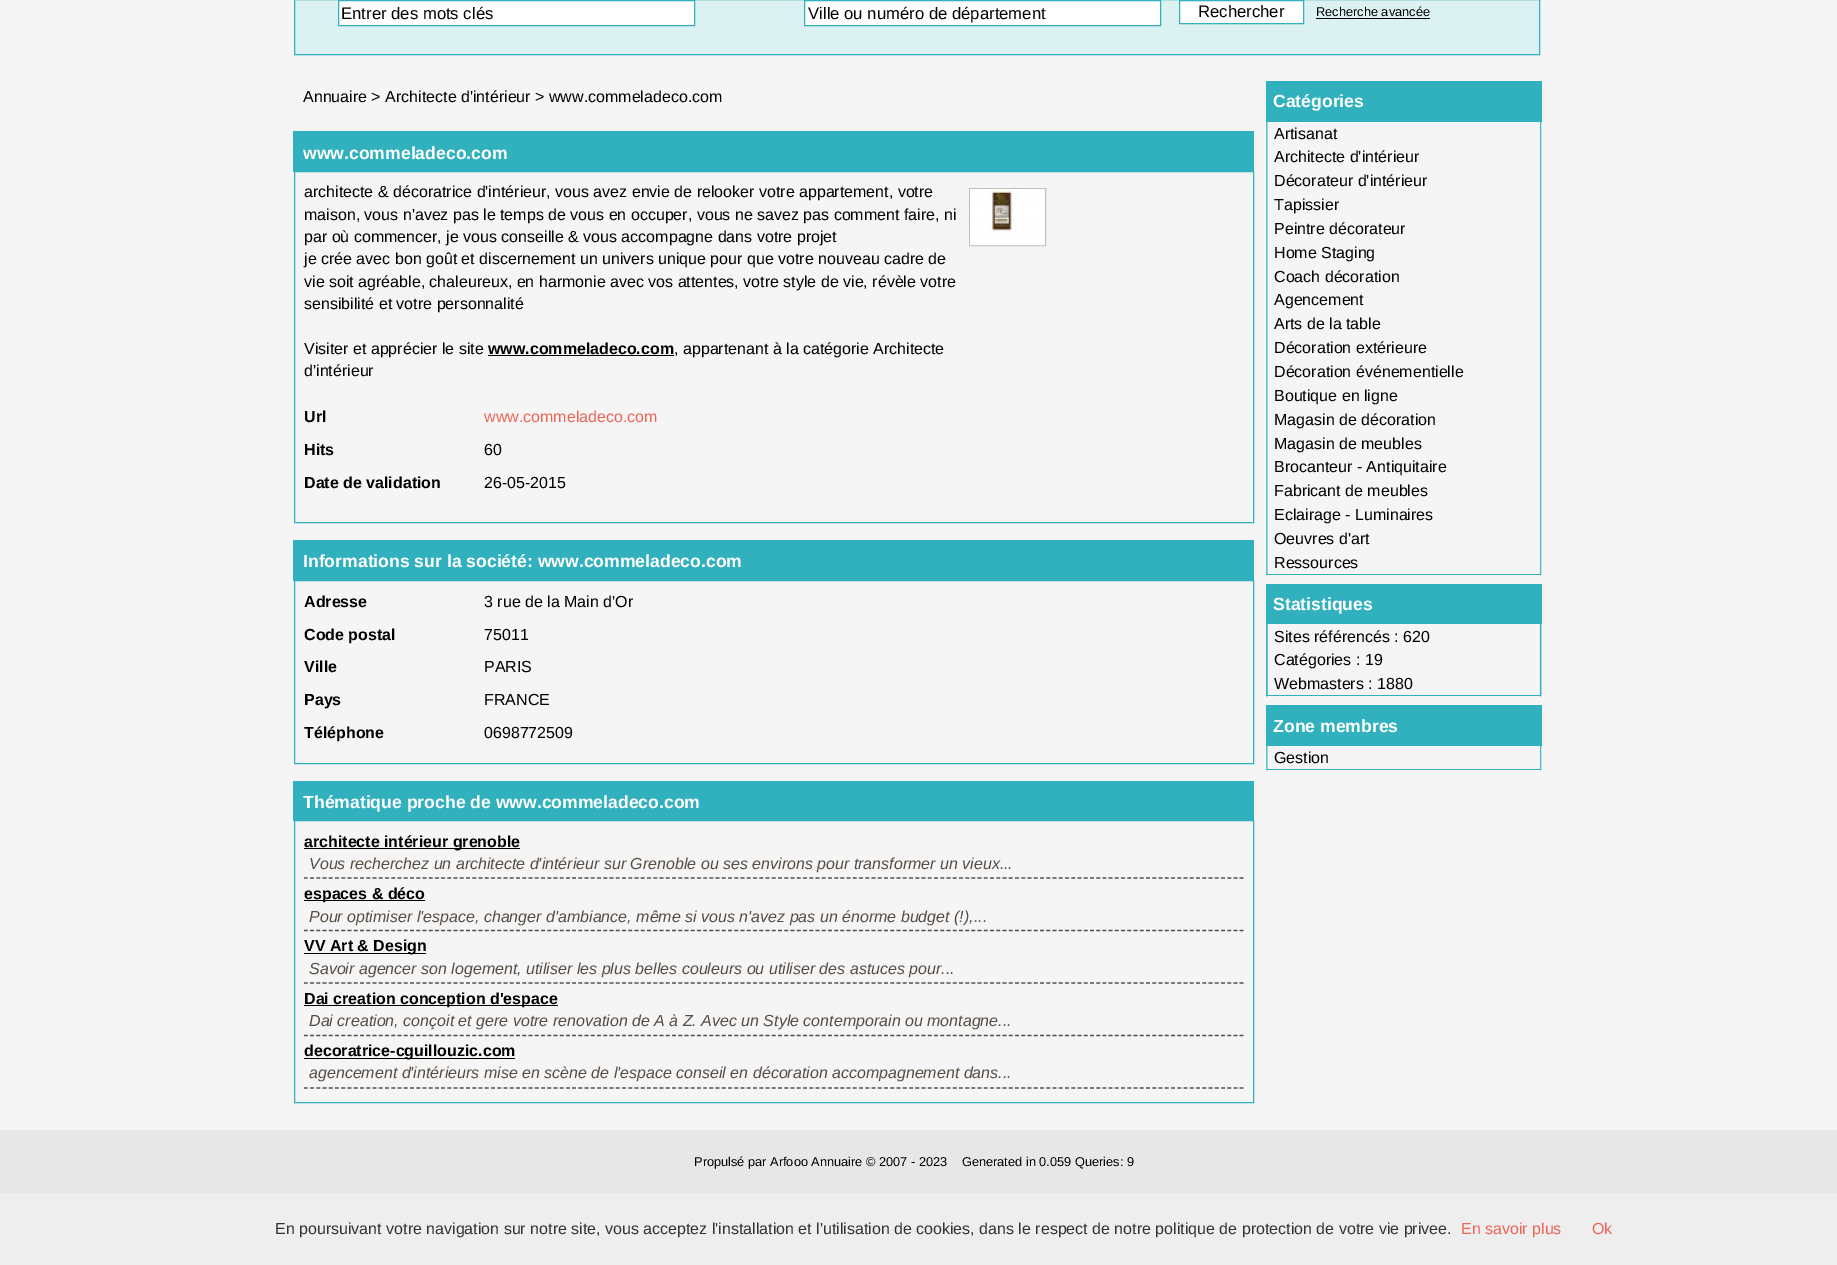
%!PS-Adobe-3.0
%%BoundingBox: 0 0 1837 1265
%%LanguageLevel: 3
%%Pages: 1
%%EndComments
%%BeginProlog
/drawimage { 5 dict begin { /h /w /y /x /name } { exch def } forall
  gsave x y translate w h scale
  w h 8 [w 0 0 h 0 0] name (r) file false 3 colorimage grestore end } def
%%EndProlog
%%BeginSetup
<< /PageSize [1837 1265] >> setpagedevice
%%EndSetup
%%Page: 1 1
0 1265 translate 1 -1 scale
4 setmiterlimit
0.961 setgray
0 0 1837 1265 rectfill
0.863 0.945 0.945 setrgbcolor
newpath 294.5 -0.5 moveto 1539.5 -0.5 lineto 1539.5 54.5 lineto 294.5 54.5 lineto closepath gsave fill grestore
0.192 0.69 0.745 setrgbcolor
stroke
1 setgray
newpath 338.5 0.5 moveto 694.5 0.5 lineto 694.5 25.5 lineto 338.5 25.5 lineto closepath gsave fill grestore
0.192 0.69 0.745 setrgbcolor
stroke
1 setgray
newpath 804.5 0.5 moveto 1160.5 0.5 lineto 1160.5 25.5 lineto 804.5 25.5 lineto closepath gsave fill grestore
0.192 0.69 0.745 setrgbcolor
stroke
1 setgray
newpath 1179.5 0.5 moveto 1303.5 0.5 lineto 1303.5 23.5 lineto 1179.5 23.5 lineto closepath gsave fill grestore
0.192 0.69 0.745 setrgbcolor
stroke
0 setgray
1316 18 114 1 rectfill
0.192 0.69 0.745 setrgbcolor
293 131 961 41 rectfill
294.5 171.5 959 351 rectstroke
0 setgray
488 355 186 1 rectfill
0.749 setgray
969.5 188.5 76 57 rectstroke
(images/1.raw) 970 189 75 57 drawimage
0.192 0.69 0.745 setrgbcolor
293 540 961 41 rectfill
294.5 580.5 959 183 rectstroke
293 781 961 40 rectfill
294.5 820.5 959 282 rectstroke
0.341 0.302 0.267 setrgbcolor
1.2 setlinewidth
[3.75 2.49] 0 setdash
newpath 304 878 moveto 1244 878 lineto stroke
0 setgray
304 848 216 1 rectfill
0.341 0.302 0.267 setrgbcolor
newpath 304 930.5 moveto 1244 930.5 lineto stroke
0 setgray
304 900 121 1 rectfill
0.341 0.302 0.267 setrgbcolor
newpath 304 983 moveto 1244 983 lineto stroke
0 setgray
304 953 122 1 rectfill
0.341 0.302 0.267 setrgbcolor
newpath 304 1035.5 moveto 1244 1035.5 lineto stroke
0 setgray
304 1005 254 1 rectfill
0.341 0.302 0.267 setrgbcolor
newpath 304 1088 moveto 1244 1088 lineto stroke
0 setgray
304 1058 211 1 rectfill
(images/2.raw) 1266 122 276 454 drawimage
0.192 0.69 0.745 setrgbcolor
1266 81 276 41 rectfill
1266 574 275 1 rectfill
(images/3.raw) 1266 624 276 73 drawimage
1266 584 276 40 rectfill
(images/4.raw) 1266 624 276 24 drawimage
(images/5.raw) 1266 647 276 25 drawimage
(images/6.raw) 1266 671 276 25 drawimage
1266 695 275 1 rectfill
(images/7.raw) 1266 746 276 25 drawimage
1266 705 276 41 rectfill
1266 769 275 1 rectfill
0.906 setgray
0 1130 1837 63 rectfill
0.933 setgray
0 1193 1837 72 rectfill
/LiberationSans-Regular [16.7 0 0 -16.7 0 0] selectfont
0 setgray
341 19 moveto (Entrer des mots clés) show
808 19 moveto (Ville ou numéro de département) show
1198 17 moveto (Rechercher) show
/LiberationSans-Regular [12.8 0 0 -12.8 0 0] selectfont
1316 16 moveto (Recherche avancée) show
/LiberationSans-Regular [16 0 0 -16 0 0] selectfont
303 102 moveto (Annuaire > Architecte d'intérieur > www.commeladeco.com) show
/LiberationSans-Bold [17.6 0 0 -17.6 0 0] selectfont
1 setgray
303 159 moveto (www.commeladeco.com) show
/LiberationSans-Regular [16 0 0 -16 0 0] selectfont
0 setgray
304 197 moveto (architecte & décoratrice d'intérieur, vous avez envie de relooker votre appartement, votre) show
304 220 moveto (maison, vous n'avez pas le temps de vous en occuper, vous ne savez pas comment faire, ni) show
304 242 moveto (par où commencer, je vous conseille & vous accompagne dans votre projet) show
304 264 moveto (je crée avec bon goût et discernement un univers unique pour que votre nouveau cadre de) show
304 287 moveto (vie soit agréable, chaleureux, en harmonie avec vos attentes, votre style de vie, révèle votre) show
304 309 moveto (sensibilité et votre personnalité) show
304 354 moveto (Visiter et apprécier le site) show
/LiberationSans-Bold [16 0 0 -16 0 0] selectfont
488 354 moveto (www.commeladeco.com) show
/LiberationSans-Regular [16 0 0 -16 0 0] selectfont
674 354 moveto (, appartenant à la catégorie Architecte) show
304 376 moveto (d'intérieur) show
/LiberationSans-Bold [16 0 0 -16 0 0] selectfont
304 422 moveto (Url) show
/LiberationSans-Regular [16 0 0 -16 0 0] selectfont
0.933 0.396 0.345 setrgbcolor
484 422 moveto (www.commeladeco.com) show
/LiberationSans-Bold [16 0 0 -16 0 0] selectfont
0 setgray
304 455 moveto (Hits) show
/LiberationSans-Regular [16 0 0 -16 0 0] selectfont
484 455 moveto (60) show
/LiberationSans-Bold [16 0 0 -16 0 0] selectfont
304 488 moveto (Date de validation) show
/LiberationSans-Regular [16 0 0 -16 0 0] selectfont
484 488 moveto (26-05-2015) show
/LiberationSans-Bold [17.6 0 0 -17.6 0 0] selectfont
1 setgray
303 567 moveto (Informations sur la société: www.commeladeco.com) show
/LiberationSans-Bold [16 0 0 -16 0 0] selectfont
0 setgray
304 607 moveto (Adresse) show
/LiberationSans-Regular [16 0 0 -16 0 0] selectfont
484 607 moveto (3 rue de la Main d'Or) show
/LiberationSans-Bold [16 0 0 -16 0 0] selectfont
304 640 moveto (Code postal) show
/LiberationSans-Regular [16 0 0 -16 0 0] selectfont
484 640 moveto (75011) show
/LiberationSans-Bold [16 0 0 -16 0 0] selectfont
304 672 moveto (Ville) show
/LiberationSans-Regular [16 0 0 -16 0 0] selectfont
484 672 moveto (PARIS) show
/LiberationSans-Bold [16 0 0 -16 0 0] selectfont
304 705 moveto (Pays) show
/LiberationSans-Regular [16 0 0 -16 0 0] selectfont
484 705 moveto (FRANCE) show
/LiberationSans-Bold [16 0 0 -16 0 0] selectfont
304 738 moveto (Téléphone) show
/LiberationSans-Regular [16 0 0 -16 0 0] selectfont
484 738 moveto (0698772509) show
/LiberationSans-Bold [17.6 0 0 -17.6 0 0] selectfont
1 setgray
303 808 moveto (Thématique proche de www.commeladeco.com) show
/LiberationSans-Bold [16 0 0 -16 0 0] selectfont
0 setgray
304 847 moveto (architecte intérieur grenoble) show
/LiberationSans-Italic [16 0 0 -16 0 0] selectfont
0.341 0.302 0.267 setrgbcolor
309 869 moveto (Vous recherchez un architecte d'intérieur sur Grenoble ou ses environs pour transformer un vieux...) show
/LiberationSans-Bold [16 0 0 -16 0 0] selectfont
0 setgray
304 899 moveto (espaces & déco) show
/LiberationSans-Italic [16 0 0 -16 0 0] selectfont
0.341 0.302 0.267 setrgbcolor
309 922 moveto (Pour optimiser l'espace, changer d'ambiance, même si vous n'avez pas un énorme budget \(!\),...) show
/LiberationSans-Bold [16 0 0 -16 0 0] selectfont
0 setgray
304 951 moveto (VV Art & Design) show
/LiberationSans-Italic [16 0 0 -16 0 0] selectfont
0.341 0.302 0.267 setrgbcolor
309 974 moveto (Savoir agencer son logement, utiliser les plus belles couleurs ou utiliser des astuces pour...) show
/LiberationSans-Bold [16 0 0 -16 0 0] selectfont
0 setgray
304 1004 moveto (Dai creation conception d'espace) show
/LiberationSans-Italic [16 0 0 -16 0 0] selectfont
0.341 0.302 0.267 setrgbcolor
309 1026 moveto (Dai creation, conçoit et gere votre renovation de A à Z. Avec un Style contemporain ou montagne...) show
/LiberationSans-Bold [16 0 0 -16 0 0] selectfont
0 setgray
304 1056 moveto (decoratrice-cguillouzic.com) show
/LiberationSans-Italic [16 0 0 -16 0 0] selectfont
0.341 0.302 0.267 setrgbcolor
309 1078 moveto (agencement d'intérieurs mise en scène de l'espace conseil en décoration accompagnement dans...) show
/LiberationSans-Bold [17.6 0 0 -17.6 0 0] selectfont
1 setgray
1273 107 moveto (Catégories) show
/LiberationSans-Regular [16 0 0 -16 0 0] selectfont
0 setgray
1274 139 moveto (Artisanat) show
1274 162 moveto (Architecte d'intérieur) show
1274 186 moveto (Décorateur d'intérieur) show
1274 210 moveto (Tapissier) show
1274 234 moveto (Peintre décorateur) show
1274 258 moveto (Home Staging) show
1274 282 moveto (Coach décoration) show
1274 305 moveto (Agencement) show
1274 329 moveto (Arts de la table) show
1274 353 moveto (Décoration extérieure) show
1274 377 moveto (Décoration événementielle) show
1274 401 moveto (Boutique en ligne) show
1274 425 moveto (Magasin de décoration) show
1274 449 moveto (Magasin de meubles) show
1274 472 moveto (Brocanteur - Antiquitaire) show
1274 496 moveto (Fabricant de meubles) show
1274 520 moveto (Eclairage - Luminaires) show
1274 544 moveto (Oeuvres d'art) show
1274 568 moveto (Ressources) show
/LiberationSans-Bold [17.6 0 0 -17.6 0 0] selectfont
1 setgray
1273 610 moveto (Statistiques) show
/LiberationSans-Regular [16 0 0 -16 0 0] selectfont
0 setgray
1274 642 moveto (Sites référencés : 620) show
1274 665 moveto (Catégories : 19) show
1274 689 moveto (Webmasters : 1880) show
/LiberationSans-Bold [17.6 0 0 -17.6 0 0] selectfont
1 setgray
1273 732 moveto (Zone membres) show
/LiberationSans-Regular [16 0 0 -16 0 0] selectfont
0 setgray
1274 763 moveto (Gestion) show
/LiberationSans-Regular [12.8 0 0 -12.8 0 0] selectfont
694 1166 moveto (Propulsé par Arfooo Annuaire © 2007 - 2023    Generated in 0.059 Queries: 9) show
/LiberationSans-Regular [16 0 0 -16 0 0] selectfont
0.2 setgray
275 1234 moveto (En poursuivant votre navigation sur notre site, vous acceptez l'installation et l'utilisation de cookies, dans le respect de notre politique de protection de votre vie privee.) show
0.933 0.396 0.345 setrgbcolor
1461 1234 moveto (En savoir plus) show
1592 1234 moveto (Ok) show
showpage
%%EOF
